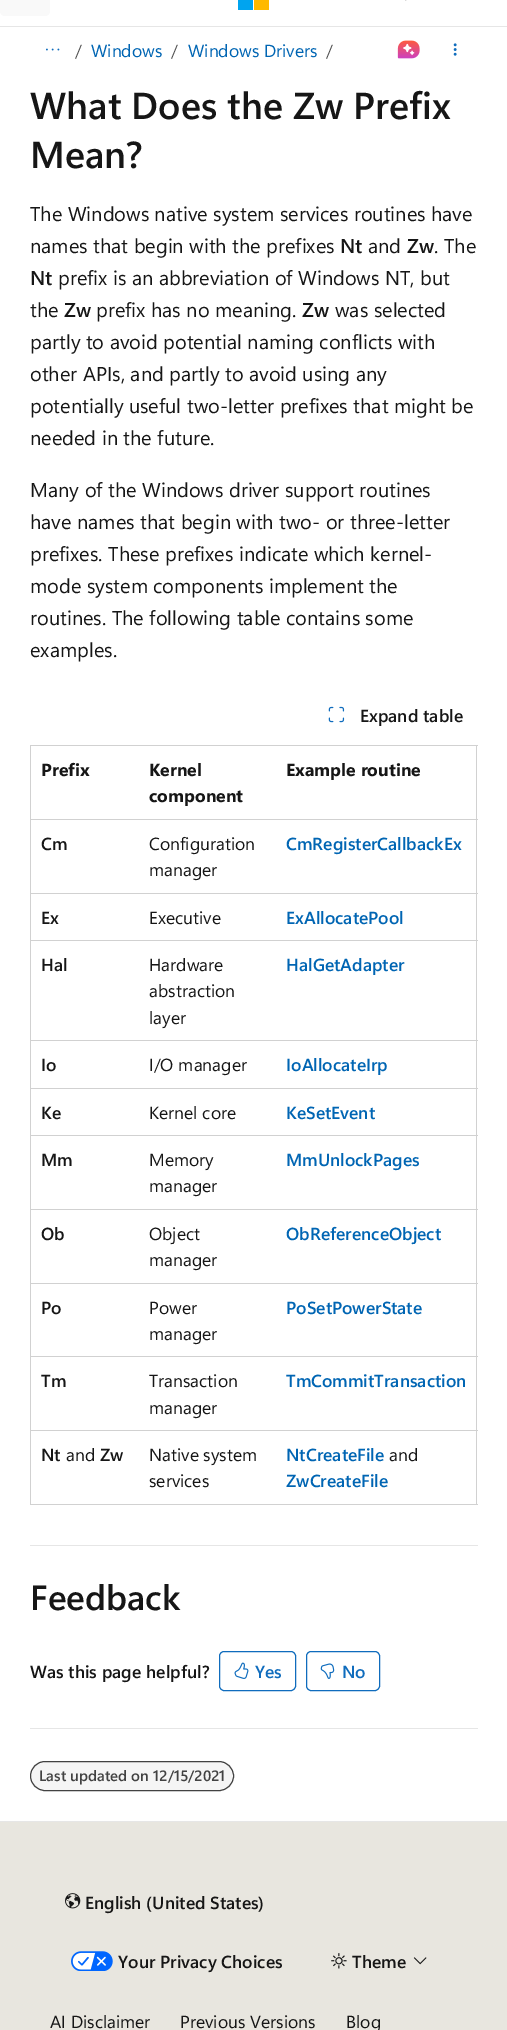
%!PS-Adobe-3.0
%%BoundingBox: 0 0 507 2030
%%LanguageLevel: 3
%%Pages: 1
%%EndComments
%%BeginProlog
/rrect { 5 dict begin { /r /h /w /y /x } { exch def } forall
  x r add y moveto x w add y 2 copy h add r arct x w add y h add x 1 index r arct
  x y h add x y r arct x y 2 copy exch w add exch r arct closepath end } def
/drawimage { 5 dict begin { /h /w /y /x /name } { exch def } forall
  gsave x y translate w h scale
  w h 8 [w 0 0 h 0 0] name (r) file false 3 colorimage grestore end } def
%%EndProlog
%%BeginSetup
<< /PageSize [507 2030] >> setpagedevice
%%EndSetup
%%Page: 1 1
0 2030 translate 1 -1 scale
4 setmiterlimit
1 setgray
0 0 507 2030 rectfill
0.902 setgray
0 26 507 1 rectfill
0.976 setgray
0 -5 50 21 5 rrect fill
0 0.643 0.937 setrgbcolor
238 0 15 10 rectfill
1 0.725 0 setrgbcolor
254 0 15 10 rectfill
(images/1.raw) 405 0 2 1 drawimage
(images/2.raw) 46 48 14 3 drawimage
(images/3.raw) 397 40 23 19 drawimage
(images/4.raw) 453 43 4 13 drawimage
(images/5.raw) 328 706 17 17 drawimage
0.82 setgray
30 745 448 1 rectfill
476 745 1 760 rectfill
30 1504 448 1 rectfill
30 745 1 760 rectfill
30 819 448 1 rectfill
30 893 448 1 rectfill
30 940 448 1 rectfill
30 1040 448 1 rectfill
30 1088 448 1 rectfill
30 1135 448 1 rectfill
30 1209 448 1 rectfill
30 1283 448 1 rectfill
30 1356 448 1 rectfill
30 1430 448 1 rectfill
0.902 setgray
30 1545 448 1 rectfill
0.059 0.424 0.741 setrgbcolor
219.5 1651.5 76 39 4.5 rrect stroke
(images/6.raw) 234 1662 15 17 drawimage
306.5 1651.5 73 39 4.5 rrect stroke
(images/7.raw) 320 1663 15 16 drawimage
0.902 setgray
30 1728 448 1 rectfill
0.961 setgray
30.5 1761.5 203 29 14.5 rrect gsave fill grestore
0.259 setgray
stroke
0.91 0.902 0.875 setrgbcolor
0 1822 507 208 rectfill
0.902 setgray
0 1821 507 1 rectfill
(images/8.raw) 65 1893 16 16 drawimage
(images/9.raw) 71 1951 42 20 drawimage
(images/10.raw) 331 1953 16 16 drawimage
(images/11.raw) 413 1957 14 8 drawimage
/SegoeUI-Regular [17.5 0 0 -17.5 0 0] selectfont
0.314 setgray
75 57 moveto (/) show
0 0.396 0.702 setrgbcolor
91 57 moveto (Windows) show
0.314 setgray
171 57 moveto (/) show
0 0.396 0.702 setrgbcolor
188 57 moveto (Windows Drivers) show
0.314 setgray
326 57 moveto (/) show
/SegoeUI-SemiBold [37.5 0 0 -37.5 0 0] selectfont
0.086 setgray
30 119 moveto (What Does the Zw Prefix) show
30 168 moveto (Mean?) show
/SegoeUI-Regular [20 0 0 -20 0 0] selectfont
30 221 moveto (The Windows native system services routines have) show
30 253 moveto (names that begin with the prefixes) show
/SegoeUI-SemiBold [20 0 0 -20 0 0] selectfont
340 253 moveto (Nt) show
/SegoeUI-Regular [20 0 0 -20 0 0] selectfont
368 253 moveto (and) show
/SegoeUI-SemiBold [20 0 0 -20 0 0] selectfont
407 253 moveto (Zw) show
/SegoeUI-Regular [20 0 0 -20 0 0] selectfont
434 253 moveto (. The) show
/SegoeUI-SemiBold [20 0 0 -20 0 0] selectfont
30 285 moveto (Nt) show
/SegoeUI-Regular [20 0 0 -20 0 0] selectfont
58 285 moveto (prefix is an abbreviation of Windows NT, but) show
30 317 moveto (the) show
/SegoeUI-SemiBold [20 0 0 -20 0 0] selectfont
64 317 moveto (Zw) show
/SegoeUI-Regular [20 0 0 -20 0 0] selectfont
96 317 moveto (prefix has no meaning.) show
/SegoeUI-SemiBold [20 0 0 -20 0 0] selectfont
302 317 moveto (Zw) show
/SegoeUI-Regular [20 0 0 -20 0 0] selectfont
335 317 moveto (was selected) show
30 349 moveto (partly to avoid potential naming conflicts with) show
30 381 moveto (other APIs, and partly to avoid using any) show
30 413 moveto (potentially useful two-letter prefixes that might be) show
30 445 moveto (needed in the future.) show
30 497 moveto (Many of the Windows driver support routines) show
30 529 moveto (have names that begin with two- or three-letter) show
30 561 moveto (prefixes. These prefixes indicate which kernel-) show
30 593 moveto (mode system components implement the) show
30 625 moveto (routines. The following table contains some) show
30 657 moveto (examples.) show
/SegoeUI-SemiBold [17.5 0 0 -17.5 0 0] selectfont
360 722 moveto (Expand table) show
/SegoeUI-Bold [17.5 0 0 -17.5 0 0] selectfont
41 776 moveto (Prefix) show
149 776 moveto (Kernel) show
149 802 moveto (component) show
286 776 moveto (Example routine) show
/SegoeUI-SemiBold [17.5 0 0 -17.5 0 0] selectfont
41 850 moveto (Cm) show
/SegoeUI-Regular [17.5 0 0 -17.5 0 0] selectfont
149 850 moveto (Configuration) show
149 876 moveto (manager) show
/SegoeUI-SemiBold [17.5 0 0 -17.5 0 0] selectfont
0 0.396 0.702 setrgbcolor
286 850 moveto (CmRegisterCallbackEx) show
0.086 setgray
41 924 moveto (Ex) show
/SegoeUI-Regular [17.5 0 0 -17.5 0 0] selectfont
149 924 moveto (Executive) show
/SegoeUI-SemiBold [17.5 0 0 -17.5 0 0] selectfont
0 0.396 0.702 setrgbcolor
286 924 moveto (ExAllocatePool) show
0.086 setgray
41 971 moveto (Hal) show
/SegoeUI-Regular [17.5 0 0 -17.5 0 0] selectfont
149 971 moveto (Hardware) show
149 997 moveto (abstraction) show
149 1024 moveto (layer) show
/SegoeUI-SemiBold [17.5 0 0 -17.5 0 0] selectfont
0 0.396 0.702 setrgbcolor
286 971 moveto (HalGetAdapter) show
0.086 setgray
41 1071 moveto (Io) show
/SegoeUI-Regular [17.5 0 0 -17.5 0 0] selectfont
149 1071 moveto (I/O manager) show
/SegoeUI-SemiBold [17.5 0 0 -17.5 0 0] selectfont
0 0.396 0.702 setrgbcolor
286 1071 moveto (IoAllocateIrp) show
0.086 setgray
41 1119 moveto (Ke) show
/SegoeUI-Regular [17.5 0 0 -17.5 0 0] selectfont
149 1119 moveto (Kernel core) show
/SegoeUI-SemiBold [17.5 0 0 -17.5 0 0] selectfont
0 0.396 0.702 setrgbcolor
286 1119 moveto (KeSetEvent) show
0.086 setgray
41 1166 moveto (Mm) show
/SegoeUI-Regular [17.5 0 0 -17.5 0 0] selectfont
149 1166 moveto (Memory) show
149 1192 moveto (manager) show
/SegoeUI-SemiBold [17.5 0 0 -17.5 0 0] selectfont
0 0.396 0.702 setrgbcolor
286 1166 moveto (MmUnlockPages) show
0.086 setgray
41 1240 moveto (Ob) show
/SegoeUI-Regular [17.5 0 0 -17.5 0 0] selectfont
149 1240 moveto (Object) show
149 1266 moveto (manager) show
/SegoeUI-SemiBold [17.5 0 0 -17.5 0 0] selectfont
0 0.396 0.702 setrgbcolor
286 1240 moveto (ObReferenceObject) show
0.086 setgray
41 1314 moveto (Po) show
/SegoeUI-Regular [17.5 0 0 -17.5 0 0] selectfont
149 1314 moveto (Power) show
149 1340 moveto (manager) show
/SegoeUI-SemiBold [17.5 0 0 -17.5 0 0] selectfont
0 0.396 0.702 setrgbcolor
286 1314 moveto (PoSetPowerState) show
0.086 setgray
41 1387 moveto (Tm) show
/SegoeUI-Regular [17.5 0 0 -17.5 0 0] selectfont
149 1387 moveto (Transaction) show
149 1414 moveto (manager) show
/SegoeUI-SemiBold [17.5 0 0 -17.5 0 0] selectfont
0 0.396 0.702 setrgbcolor
286 1387 moveto (TmCommitTransaction) show
0.086 setgray
41 1461 moveto (Nt) show
/SegoeUI-Regular [17.5 0 0 -17.5 0 0] selectfont
66 1461 moveto (and) show
/SegoeUI-SemiBold [17.5 0 0 -17.5 0 0] selectfont
100 1461 moveto (Zw) show
/SegoeUI-Regular [17.5 0 0 -17.5 0 0] selectfont
149 1461 moveto (Native system) show
149 1487 moveto (services) show
/SegoeUI-SemiBold [17.5 0 0 -17.5 0 0] selectfont
0 0.396 0.702 setrgbcolor
286 1461 moveto (NtCreateFile) show
/SegoeUI-Regular [17.5 0 0 -17.5 0 0] selectfont
0.086 setgray
389 1461 moveto (and) show
/SegoeUI-SemiBold [17.5 0 0 -17.5 0 0] selectfont
0 0.396 0.702 setrgbcolor
286 1487 moveto (ZwCreateFile) show
/SegoeUI-SemiBold [35 0 0 -35 0 0] selectfont
0.086 setgray
30 1610 moveto (Feedback) show
/SegoeUI-SemiBold [17.5 0 0 -17.5 0 0] selectfont
30 1678 moveto (Was this page helpful?) show
0.059 0.424 0.741 setrgbcolor
255 1678 moveto (Yes) show
342 1678 moveto (No) show
/SegoeUI-SemiBold [15 0 0 -15 0 0] selectfont
0.259 setgray
39 1781 moveto (Last updated on 12/15/2021) show
/SegoeUI-SemiBold [17.5 0 0 -17.5 0 0] selectfont
0.086 setgray
85 1909 moveto (English \(United States\)) show
118 1968 moveto (Your Privacy Choices) show
352 1968 moveto (Theme) show
/SegoeUI-Regular [17.5 0 0 -17.5 0 0] selectfont
50 2028 moveto (AI Disclaimer) show
180 2028 moveto (Previous Versions) show
346 2028 moveto (Blog) show
showpage
%%EOF
